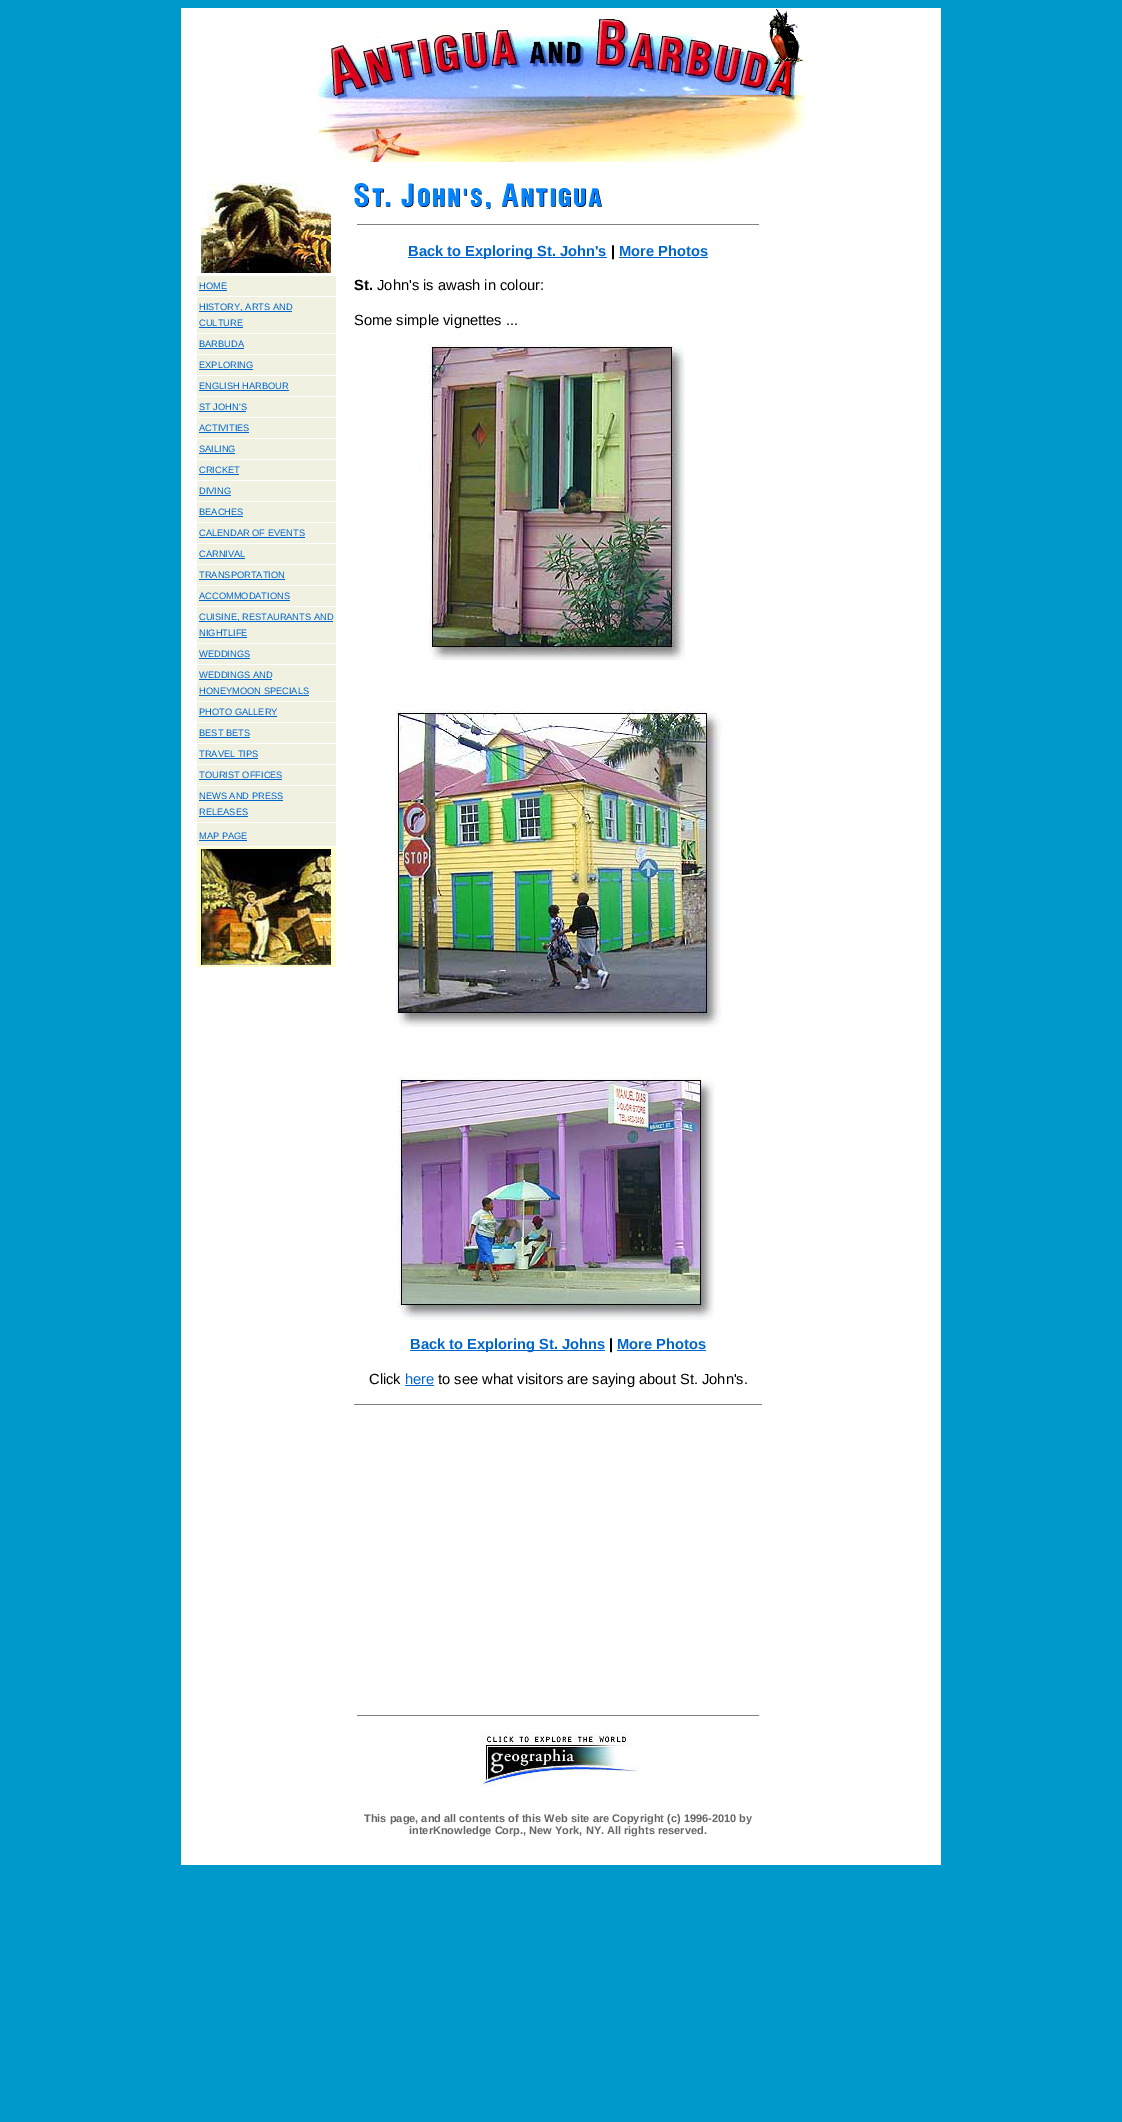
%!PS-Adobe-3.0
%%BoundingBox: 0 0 1122 2122
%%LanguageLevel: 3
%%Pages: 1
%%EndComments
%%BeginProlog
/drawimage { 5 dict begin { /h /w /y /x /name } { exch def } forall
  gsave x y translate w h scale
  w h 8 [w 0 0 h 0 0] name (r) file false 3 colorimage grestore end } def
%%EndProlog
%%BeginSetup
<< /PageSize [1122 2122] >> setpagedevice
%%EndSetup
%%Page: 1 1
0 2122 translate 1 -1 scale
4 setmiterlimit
0 0.6 0.8 setrgbcolor
0 0 1122 2122 rectfill
1 setgray
181 8 760 1857 rectfill
(images/1.raw) 318 8 443 87 drawimage
(images/2.raw) 761 9 42 86 drawimage
(images/3.raw) 319 95 485 67 drawimage
(images/4.raw) 201 183 130 90 drawimage
0.945 0.945 0.886 setrgbcolor
197 276 139 20 rectfill
0 0.4 0.8 setrgbcolor
199 290 28 1 rectfill
0.945 0.945 0.886 setrgbcolor
197 297 139 36 rectfill
0 0.4 0.8 setrgbcolor
199 311 93 1 rectfill
199 327 44 1 rectfill
0.945 0.945 0.886 setrgbcolor
197 334 139 20 rectfill
0 0.4 0.8 setrgbcolor
199 348 45 1 rectfill
0.945 0.945 0.886 setrgbcolor
197 355 139 20 rectfill
0 0.4 0.8 setrgbcolor
199 369 54 1 rectfill
0.945 0.945 0.886 setrgbcolor
197 376 139 20 rectfill
0 0.4 0.8 setrgbcolor
199 390 90 1 rectfill
0.945 0.945 0.886 setrgbcolor
197 397 139 20 rectfill
0 0.4 0.8 setrgbcolor
199 411 47 1 rectfill
0.945 0.945 0.886 setrgbcolor
197 418 139 20 rectfill
0 0.4 0.8 setrgbcolor
199 432 50 1 rectfill
0.945 0.945 0.886 setrgbcolor
197 439 139 20 rectfill
0 0.4 0.8 setrgbcolor
199 453 36 1 rectfill
0.945 0.945 0.886 setrgbcolor
197 460 139 20 rectfill
0 0.4 0.8 setrgbcolor
199 474 40 1 rectfill
0.945 0.945 0.886 setrgbcolor
197 481 139 20 rectfill
0 0.4 0.8 setrgbcolor
199 495 32 1 rectfill
0.945 0.945 0.886 setrgbcolor
197 502 139 20 rectfill
0 0.4 0.8 setrgbcolor
199 516 44 1 rectfill
0.945 0.945 0.886 setrgbcolor
197 523 139 20 rectfill
0 0.4 0.8 setrgbcolor
199 537 106 1 rectfill
0.945 0.945 0.886 setrgbcolor
197 544 139 20 rectfill
0 0.4 0.8 setrgbcolor
199 558 46 1 rectfill
0.945 0.945 0.886 setrgbcolor
197 565 139 20 rectfill
0 0.4 0.8 setrgbcolor
199 579 86 1 rectfill
0.945 0.945 0.886 setrgbcolor
197 586 139 20 rectfill
0 0.4 0.8 setrgbcolor
199 600 91 1 rectfill
0.945 0.945 0.886 setrgbcolor
197 607 139 36 rectfill
0 0.4 0.8 setrgbcolor
199 621 134 1 rectfill
199 637 48 1 rectfill
0.945 0.945 0.886 setrgbcolor
197 644 139 20 rectfill
0 0.4 0.8 setrgbcolor
199 658 51 1 rectfill
0.945 0.945 0.886 setrgbcolor
197 665 139 36 rectfill
0 0.4 0.8 setrgbcolor
199 679 73 1 rectfill
199 695 110 1 rectfill
0.945 0.945 0.886 setrgbcolor
197 702 139 20 rectfill
0 0.4 0.8 setrgbcolor
199 716 78 1 rectfill
0.945 0.945 0.886 setrgbcolor
197 723 139 20 rectfill
0 0.4 0.8 setrgbcolor
199 737 51 1 rectfill
0.945 0.945 0.886 setrgbcolor
197 744 139 20 rectfill
0 0.4 0.8 setrgbcolor
199 758 59 1 rectfill
0.945 0.945 0.886 setrgbcolor
197 765 139 20 rectfill
0 0.4 0.8 setrgbcolor
199 779 83 1 rectfill
0.945 0.945 0.886 setrgbcolor
197 786 139 36 rectfill
0 0.4 0.8 setrgbcolor
199 800 84 1 rectfill
199 816 49 1 rectfill
0.945 0.945 0.886 setrgbcolor
197 823 139 23 rectfill
0 0.4 0.8 setrgbcolor
199 840 48 1 rectfill
1 1 0.8 setrgbcolor
197 847 139 120 rectfill
(images/5.raw) 201 849 130 116 drawimage
(images/6.raw) 354 183 248 26 drawimage
0.502 setgray
357 224 402 1 rectfill
0 0.4 0.8 setrgbcolor
408 257 199 1 rectfill
619 257 89 1 rectfill
(images/7.raw) 429 345 256 315 drawimage
(images/8.raw) 395 710 327 317 drawimage
(images/9.raw) 398 1077 317 243 drawimage
410 1350 195 1 rectfill
617 1350 89 1 rectfill
405 1385 29 1 rectfill
0.502 setgray
354 1404 408 1 rectfill
357 1715 402 1 rectfill
(images/10.raw) 480 1732 157 54 drawimage
/LiberationSans-Regular [9.3 0 0 -9.3 0 0] selectfont
0 0.4 0.8 setrgbcolor
199 289 moveto (HOME) show
199 310 moveto (HISTORY, ARTS AND) show
199 326 moveto (CULTURE) show
199 347 moveto (BARBUDA) show
199 368 moveto (EXPLORING) show
199 389 moveto (ENGLISH HARBOUR) show
199 410 moveto (ST JOHN'S) show
199 431 moveto (ACTIVITIES) show
199 452 moveto (SAILING) show
199 473 moveto (CRICKET) show
199 494 moveto (DIVING) show
199 515 moveto (BEACHES) show
199 536 moveto (CALENDAR OF EVENTS) show
199 557 moveto (CARNIVAL) show
199 578 moveto (TRANSPORTATION) show
199 599 moveto (ACCOMMODATIONS) show
199 620 moveto (CUISINE, RESTAURANTS AND) show
199 636 moveto (NIGHTLIFE) show
199 657 moveto (WEDDINGS) show
199 678 moveto (WEDDINGS AND) show
199 694 moveto (HONEYMOON SPECIALS) show
199 715 moveto (PHOTO GALLERY) show
199 736 moveto (BEST BETS) show
199 757 moveto (TRAVEL TIPS) show
199 778 moveto (TOURIST OFFICES) show
199 799 moveto (NEWS AND PRESS) show
199 815 moveto (RELEASES) show
199 839 moveto (MAP PAGE) show
/LiberationSans-Bold [14.7 0 0 -14.7 0 0] selectfont
408 256 moveto (Back to Exploring St. John's) show
0 setgray
611 256 moveto (|) show
0 0.4 0.8 setrgbcolor
619 256 moveto (More Photos) show
0 setgray
354 290 moveto (St.) show
/LiberationSans-Regular [14.7 0 0 -14.7 0 0] selectfont
377 290 moveto (John's is awash in colour:) show
354 325 moveto (Some simple vignettes ...) show
/LiberationSans-Bold [14.7 0 0 -14.7 0 0] selectfont
0 0.4 0.8 setrgbcolor
410 1349 moveto (Back to Exploring St. Johns) show
0 setgray
609 1349 moveto (|) show
0 0.4 0.8 setrgbcolor
617 1349 moveto (More Photos) show
/LiberationSans-Regular [14.7 0 0 -14.7 0 0] selectfont
0 setgray
369 1384 moveto (Click) show
0 0.4 0.8 setrgbcolor
405 1384 moveto (here) show
0 setgray
438 1384 moveto (to see what visitors are saying about St. John's.) show
/LiberationSans-Bold [11 0 0 -11 0 0] selectfont
0.4 setgray
364 1822 moveto (This page, and all contents of this Web site are Copyright \(c\) 1996-2010 by) show
409 1834 moveto (interKnowledge Corp., New York, NY. All rights reserved.) show
showpage
%%EOF
